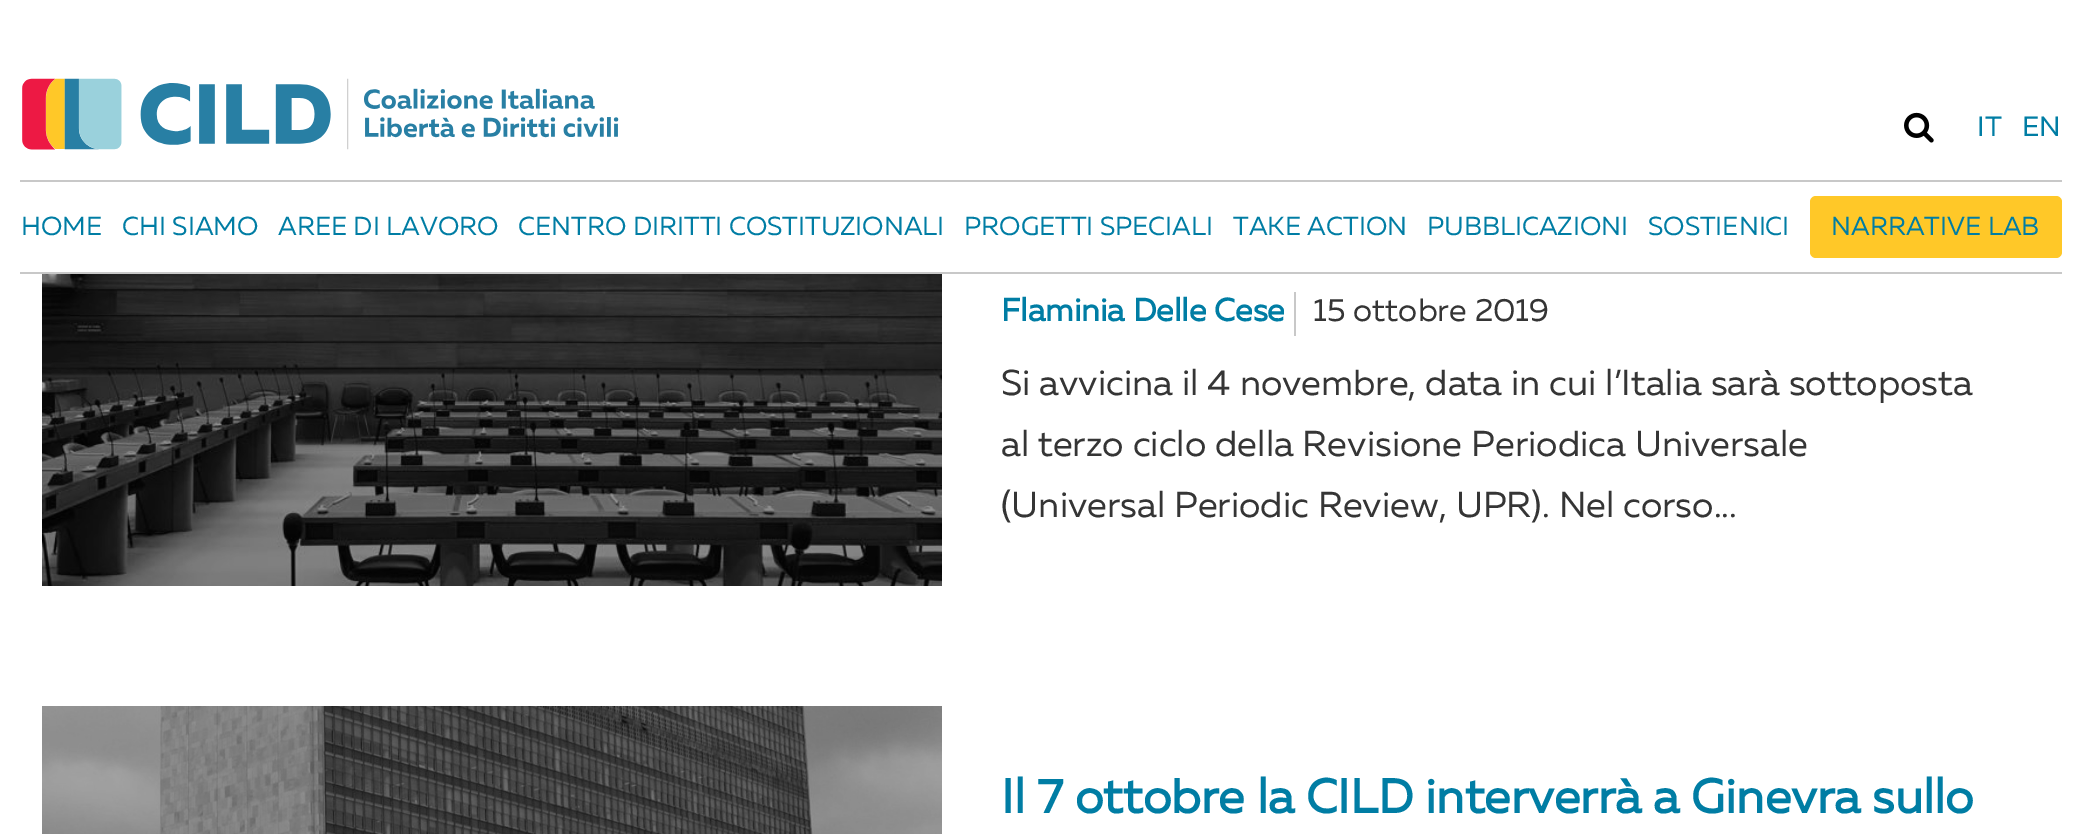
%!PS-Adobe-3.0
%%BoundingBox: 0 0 2081 834
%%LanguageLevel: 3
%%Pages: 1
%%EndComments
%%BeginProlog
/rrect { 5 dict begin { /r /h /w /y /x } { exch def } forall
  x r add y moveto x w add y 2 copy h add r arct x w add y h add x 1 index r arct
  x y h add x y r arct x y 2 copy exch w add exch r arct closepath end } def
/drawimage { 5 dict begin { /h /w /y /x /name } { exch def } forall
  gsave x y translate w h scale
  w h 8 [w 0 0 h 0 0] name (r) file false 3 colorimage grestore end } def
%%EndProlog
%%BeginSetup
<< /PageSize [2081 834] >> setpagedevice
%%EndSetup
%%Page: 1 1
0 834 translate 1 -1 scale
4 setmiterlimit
1 setgray
0 0 2081 834 rectfill
(images/1.raw) 22 78 597 72 drawimage
(images/2.raw) 1904 112 30 31 drawimage
0.784 setgray
20 180 2042 2 rectfill
20 272 2042 2 rectfill
1 0.784 0.157 setrgbcolor
1810 196 252 62 6 rrect fill
(images/3.raw) 42 274 900 312 drawimage
0.784 setgray
1294 292 2 44 rectfill
(images/4.raw) 42 706 900 128 drawimage
/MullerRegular-Regular [28 0 0 -28 0 0] selectfont
0 0.49 0.643 setrgbcolor
1977 136 moveto (IT) show
2022 136 moveto (EN) show
/MullerRegular-Regular [26 0 0 -26 0 0] selectfont
21 235 moveto (HOME) show
122 235 moveto (CHI SIAMO) show
278 235 moveto (AREE DI LAVORO) show
518 235 moveto (CENTRO DIRITTI COSTITUZIONALI) show
964 235 moveto (PROGETTI SPECIALI) show
1233 235 moveto (TAKE ACTION) show
1427 235 moveto (PUBBLICAZIONI) show
1648 235 moveto (SOSTIENICI) show
1831 235 moveto (NARRATIVE LAB) show
/MullerRegular-Bold [32 0 0 -32 0 0] selectfont
1001 321 moveto (Flaminia Delle Cese) show
/MullerRegular-Regular [32 0 0 -32 0 0] selectfont
0.208 setgray
1313 321 moveto (15 ottobre 2019) show
/MullerRegular-Regular [36 0 0 -36 0 0] selectfont
1001 395 moveto (Si avvicina il 4 novembre, data in cui l’Italia sarà sottoposta) show
1001 456 moveto (al terzo ciclo della Revisione Periodica Universale) show
1001 517 moveto (\(Universal Periodic Review, UPR\). Nel corso...) show
/MullerRegular-Bold [48 0 0 -48 0 0] selectfont
0 0.49 0.643 setrgbcolor
1001 813 moveto (Il 7 ottobre la CILD interverrà a Ginevra sullo) show
showpage
%%EOF
